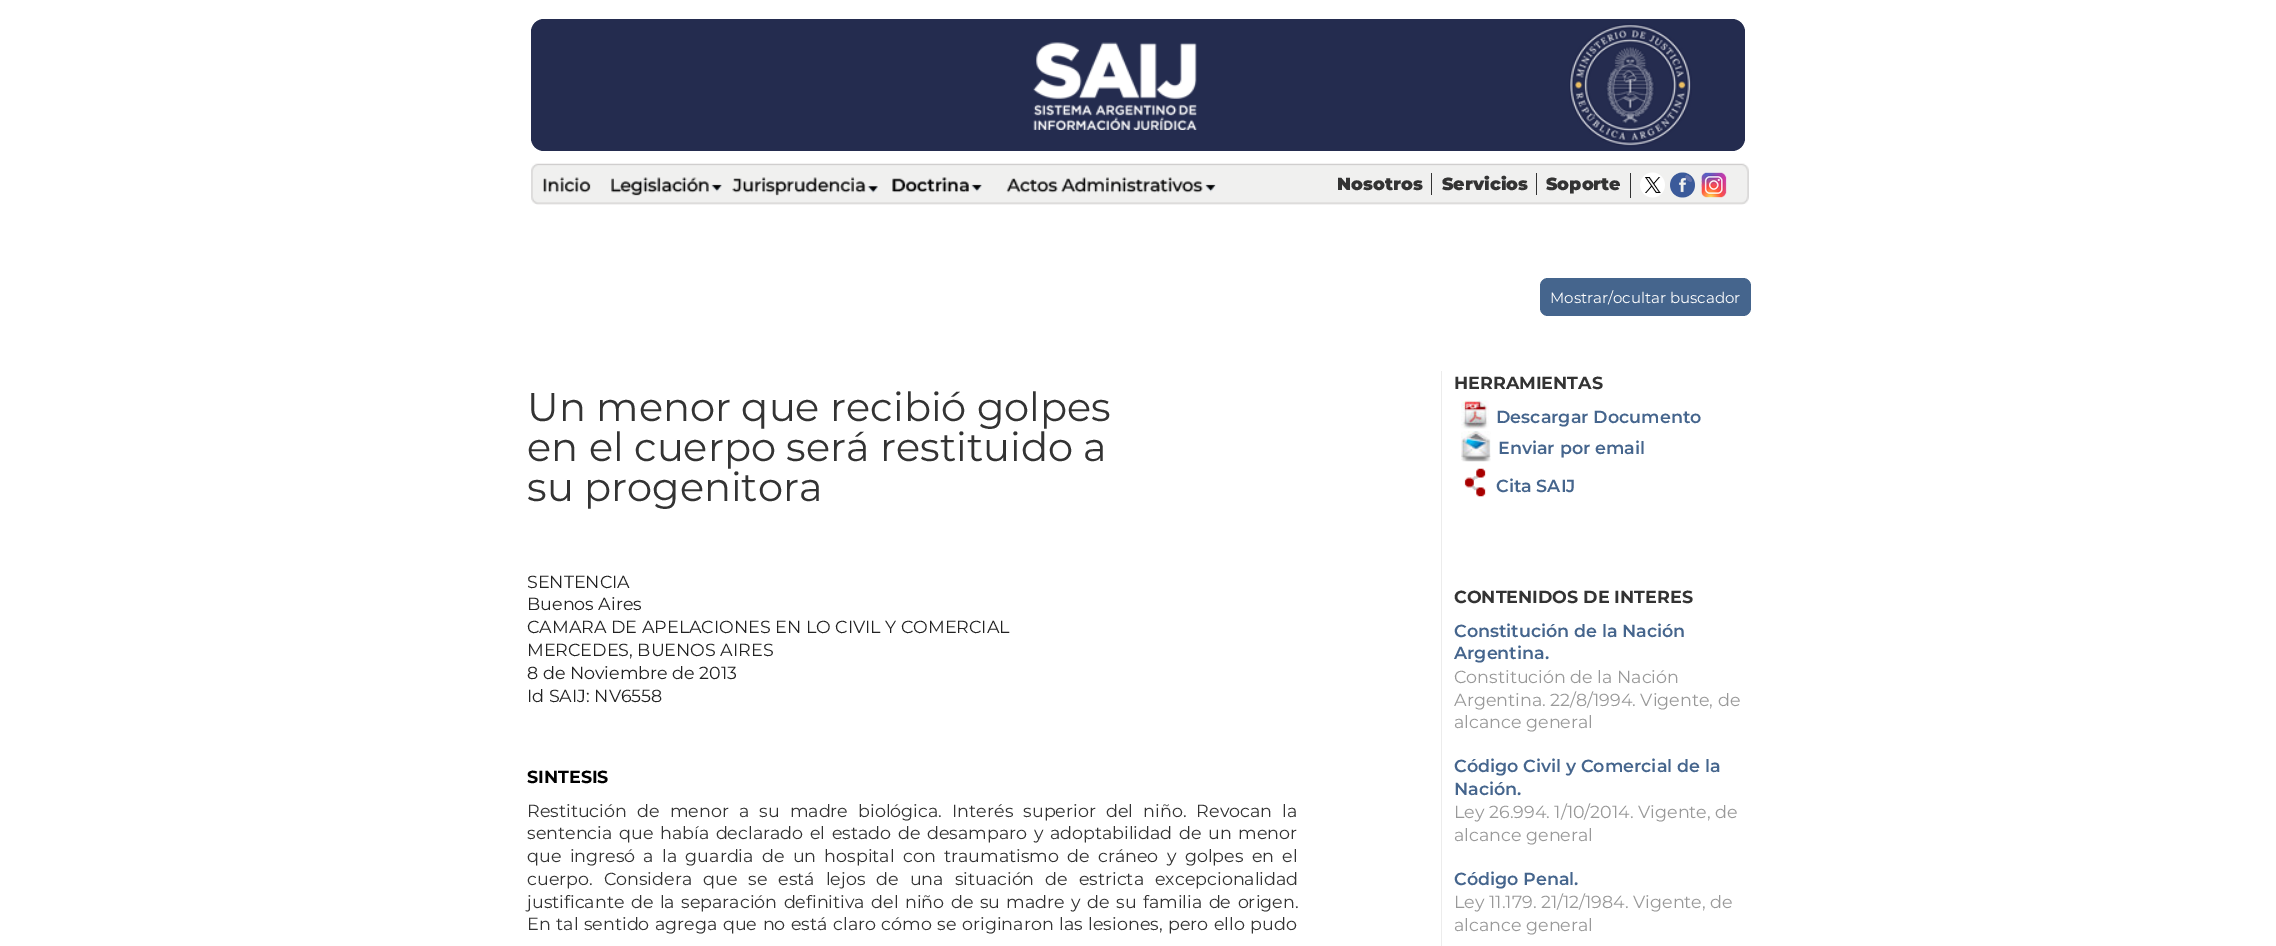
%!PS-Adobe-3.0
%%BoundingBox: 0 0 2276 946
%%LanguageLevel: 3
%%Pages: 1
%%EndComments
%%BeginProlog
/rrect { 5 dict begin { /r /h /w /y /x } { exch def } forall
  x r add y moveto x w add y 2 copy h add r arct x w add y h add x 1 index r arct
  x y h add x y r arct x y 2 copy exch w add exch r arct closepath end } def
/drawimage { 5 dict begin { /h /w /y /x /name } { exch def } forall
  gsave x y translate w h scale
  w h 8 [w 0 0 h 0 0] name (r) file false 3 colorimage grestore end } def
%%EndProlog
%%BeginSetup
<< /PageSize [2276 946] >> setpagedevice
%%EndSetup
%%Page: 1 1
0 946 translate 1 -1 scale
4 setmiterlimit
1 setgray
0 0 2276 946 rectfill
0.141 0.173 0.31 setrgbcolor
531 19 1214 132 13 rrect fill
(images/1.raw) 1033 42 164 88 drawimage
(images/2.raw) 1569 23 123 124 drawimage
(images/3.raw) 531 163 1218 42 drawimage
(images/4.raw) 543 177 48 16 drawimage
(images/5.raw) 611 177 111 19 drawimage
(images/6.raw) 732 177 146 19 drawimage
(images/7.raw) 892 177 90 16 drawimage
(images/8.raw) 1006 177 210 16 drawimage
0.2 setgray
1431 173 1 22 rectfill
1536 173 1 22 rectfill
1630 173 1 25 rectfill
(images/9.raw) 1640 172 25 26 drawimage
(images/10.raw) 1670 172 25 26 drawimage
(images/11.raw) 1701 172 26 26 drawimage
0.271 0.396 0.553 setrgbcolor
1540 278 211 38 8 rrect fill
0.925 setgray
1441 371 1 575 rectfill
(images/12.raw) 1461 400 28 29 drawimage
(images/13.raw) 1461 431 30 31 drawimage
(images/14.raw) 1464 468 22 29 drawimage
/Montserrat-Black [17.5 0 0 -17.5 0 0] selectfont
0.2 setgray
1337 190 moveto (Nosotros) show
1442 190 moveto (Servicios) show
1546 190 moveto (Soporte) show
/Montserrat-Regular [15 0 0 -15 0 0] selectfont
1 setgray
1550 303 moveto (Mostrar/ocultar buscador) show
/Montserrat-Regular [40 0 0 -40 0 0] selectfont
0.2 setgray
527 421 moveto (Un menor que recibió golpes) show
527 461 moveto (en el cuerpo será restituido a) show
527 501 moveto (su progenitora) show
/Montserrat-Regular [17.5 0 0 -17.5 0 0] selectfont
0.133 setgray
527 588 moveto (SENTENCIA) show
527 610 moveto (Buenos Aires) show
527 633 moveto (CAMARA DE APELACIONES EN LO CIVIL Y COMERCIAL) show
527 656 moveto (MERCEDES, BUENOS AIRES) show
527 679 moveto (8 de Noviembre de 2013) show
527 702 moveto (Id SAIJ: NV6558) show
/Montserrat-Bold [17.5 0 0 -17.5 0 0] selectfont
0 setgray
527 783 moveto (SINTESIS) show
/Montserrat-Regular [17.5 0 0 -17.5 0 0] selectfont
0.2 setgray
527 817 moveto 5.6 0 32 (Restitución de menor a su madre biológica. Interés superior del niño. Revocan la) widthshow
527 839 moveto 2.1 0 32 (sentencia que había declarado el estado de desamparo y adoptabilidad de un menor) widthshow
527 862 moveto 3.75 0 32 (que ingresó a la guardia de un hospital con traumatismo de cráneo y golpes en el) widthshow
527 885 moveto 6.4 0 32 (cuerpo. Considera que se está lejos de una situación de estricta excepcionalidad) widthshow
527 908 moveto 1.9 0 32 (justificante de la separación definitiva del niño de su madre y de su familia de origen.) widthshow
527 930 moveto 1 0 32 (En tal sentido agrega que no está claro cómo se originaron las lesiones, pero ello pudo) widthshow
/Montserrat-Bold [17.5 0 0 -17.5 0 0] selectfont
1454 389 moveto (HERRAMIENTAS) show
/Montserrat-SemiBold [17.5 0 0 -17.5 0 0] selectfont
0.271 0.396 0.553 setrgbcolor
1496 423 moveto (Descargar Documento) show
1498 454 moveto (Enviar por email) show
1496 492 moveto (Cita SAIJ) show
/Montserrat-Bold [17.5 0 0 -17.5 0 0] selectfont
0.2 setgray
1454 603 moveto (CONTENIDOS DE INTERES) show
/Montserrat-SemiBold [17.5 0 0 -17.5 0 0] selectfont
0.271 0.396 0.553 setrgbcolor
1454 637 moveto (Constitución de la Nación) show
1454 659 moveto (Argentina.) show
/Montserrat-Regular [17.5 0 0 -17.5 0 0] selectfont
0.6 setgray
1454 683 moveto (Constitución de la Nación) show
1454 706 moveto (Argentina. 22/8/1994. Vigente, de) show
1454 728 moveto (alcance general) show
/Montserrat-SemiBold [17.5 0 0 -17.5 0 0] selectfont
0.271 0.396 0.553 setrgbcolor
1454 772 moveto (Código Civil y Comercial de la) show
1454 795 moveto (Nación.) show
/Montserrat-Regular [17.5 0 0 -17.5 0 0] selectfont
0.6 setgray
1454 818 moveto (Ley 26.994. 1/10/2014. Vigente, de) show
1454 841 moveto (alcance general) show
/Montserrat-SemiBold [17.5 0 0 -17.5 0 0] selectfont
0.271 0.396 0.553 setrgbcolor
1454 885 moveto (Código Penal.) show
/Montserrat-Regular [17.5 0 0 -17.5 0 0] selectfont
0.6 setgray
1454 908 moveto (Ley 11.179. 21/12/1984. Vigente, de) show
1454 931 moveto (alcance general) show
showpage
%%EOF
